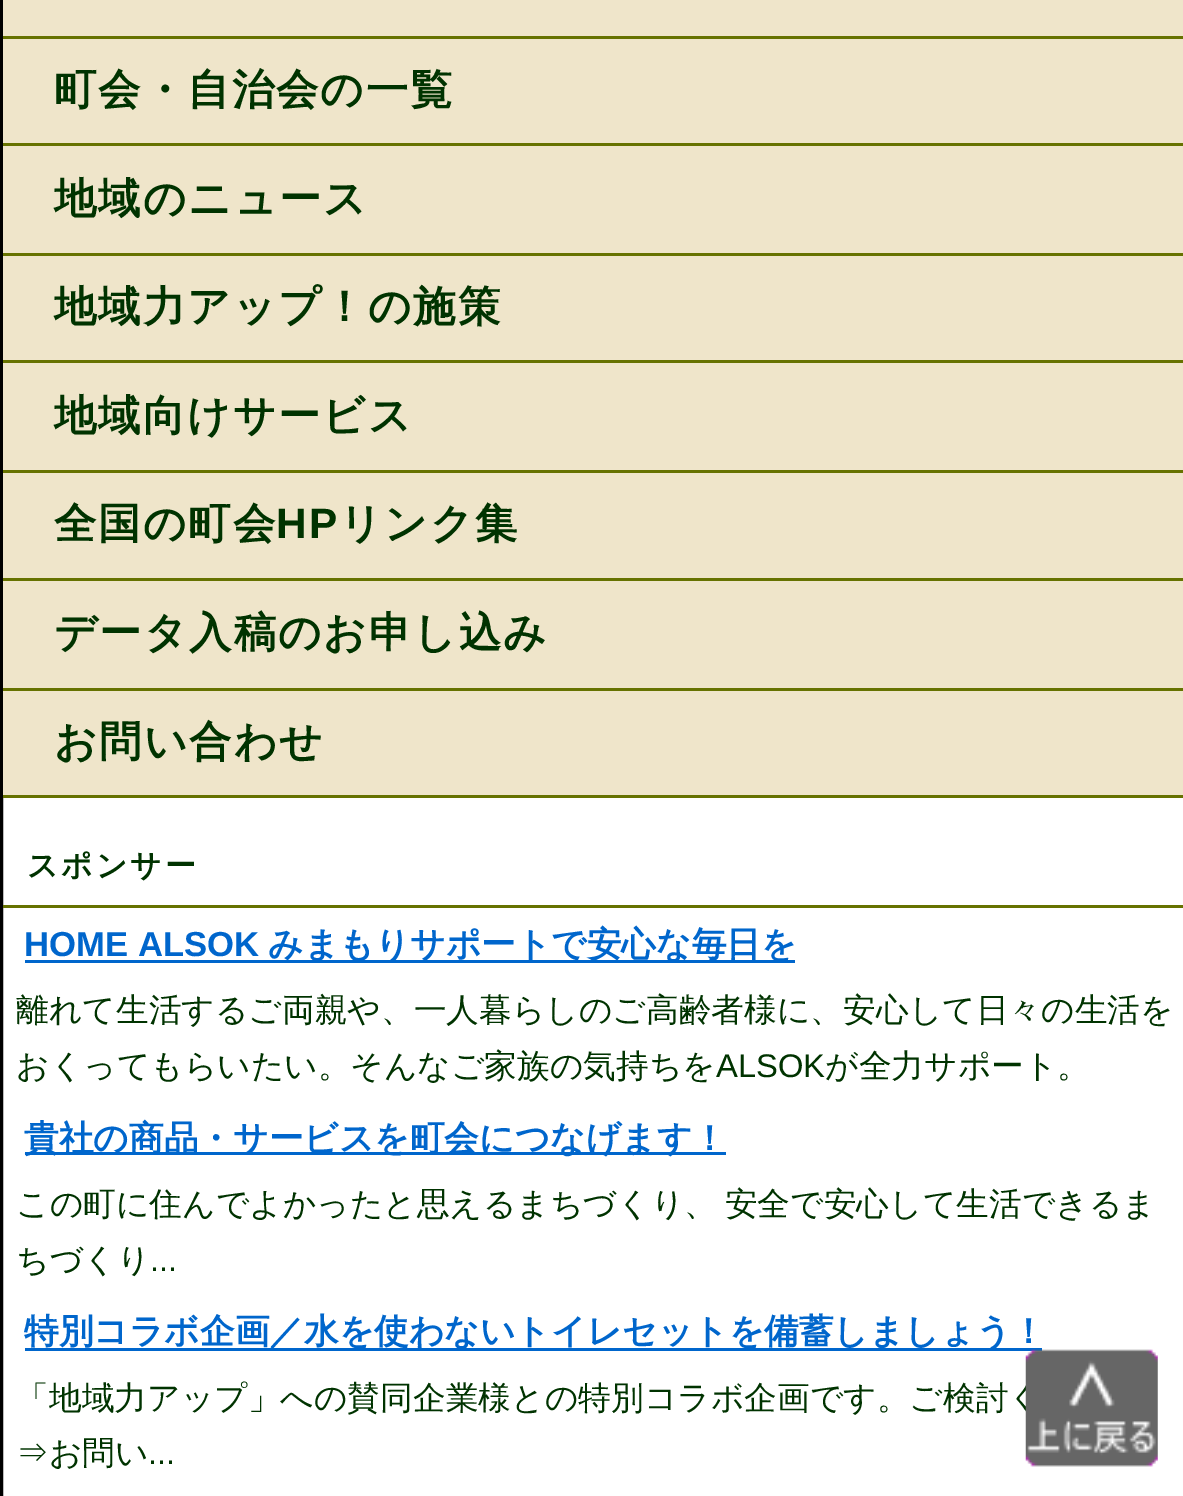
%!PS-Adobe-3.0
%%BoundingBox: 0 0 1183 1496
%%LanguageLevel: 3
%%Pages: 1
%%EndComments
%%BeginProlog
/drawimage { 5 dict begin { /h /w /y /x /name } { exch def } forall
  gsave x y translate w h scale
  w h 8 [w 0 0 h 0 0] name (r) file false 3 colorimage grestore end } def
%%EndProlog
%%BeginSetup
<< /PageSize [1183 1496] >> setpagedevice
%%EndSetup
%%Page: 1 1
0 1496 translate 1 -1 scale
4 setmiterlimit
1 setgray
0 0 1183 1496 rectfill
0 setgray
3 setlinewidth
1.5 -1.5 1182 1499 rectstroke
1 setgray
1182 798 1 698 rectfill
0.937 0.898 0.792 setrgbcolor
3 0 1180 795 rectfill
0.4 0.447 0 setrgbcolor
3 36 1180 3 rectfill
3 143 1180 3 rectfill
3 253 1180 3 rectfill
3 360 1180 3 rectfill
3 470 1180 3 rectfill
3 578 1180 3 rectfill
3 688 1180 3 rectfill
3 795 1180 3 rectfill
3 905 1180 3 rectfill
0 0.4 0.8 setrgbcolor
25 960 770 3 rectfill
25 1152 701 3 rectfill
25 1348 1017 3 rectfill
/WenQuanYiZenHei-Bold [42.4 0 0 -42.4 0 0] selectfont
0 0.2 0 setrgbcolor
54 104 moveto 2 0 (町会・自治会の一覧) ashow
54 213 moveto 2 0 (地域のニュース) ashow
54 321 moveto 2 0 (地域力アップ！の施策) ashow
54 430 moveto 2 0 (地域向けサービス) ashow
54 538 moveto 2 0 (全国の町会) ashow
/LiberationSans-Bold [42.4 0 0 -42.4 0 0] selectfont
276 538 moveto 2 0 (HP) ashow
/WenQuanYiZenHei-Bold [42.4 0 0 -42.4 0 0] selectfont
339 538 moveto 2 0 (リンク集) ashow
54 647 moveto 2 0 (データ入稿のお申し込み) ashow
54 756 moveto 2 0 (お問い合わせ) ashow
/WenQuanYiZenHei-Bold [30.75 0 0 -30.75 0 0] selectfont
27 876 moveto 3 0 (スポンサー) ashow
/LiberationSans-Bold [34.7 0 0 -34.7 0 0] selectfont
0 0.4 0.8 setrgbcolor
24 956 moveto (HOME ALSOK) show
/WenQuanYiZenHei-Bold [34.7 0 0 -34.7 0 0] selectfont
268 956 moveto (みまもりサポートで安心な毎日を) show
/WenQuanYiZenHei-Medium [32.75 0 0 -32.75 0 0] selectfont
0 0.2 0 setrgbcolor
16 1021 moveto (離れて生活するご両親や、一人暮らしのご高齢者様に、安心して日々の生活を) show
16 1077 moveto (おくってもらいたい。そんなご家族の気持ちを) show
/LiberationSans-Regular [32.75 0 0 -32.75 0 0] selectfont
716 1077 moveto (ALSOK) show
/WenQuanYiZenHei-Medium [32.75 0 0 -32.75 0 0] selectfont
825 1077 moveto (が全力サポート。) show
/WenQuanYiZenHei-Bold [34.7 0 0 -34.7 0 0] selectfont
0 0.4 0.8 setrgbcolor
24 1150 moveto (貴社の商品・サービスを町会につなげます！) show
/WenQuanYiZenHei-Medium [32.75 0 0 -32.75 0 0] selectfont
0 0.2 0 setrgbcolor
16 1215 moveto -2 0 32 (この町に住んでよかったと思えるまちづくり、 安全で安心して生活できるま) widthshow
16 1271 moveto (ちづくり) show
/LiberationSans-Regular [32.75 0 0 -32.75 0 0] selectfont
150 1271 moveto (...) show
/WenQuanYiZenHei-Bold [34.7 0 0 -34.7 0 0] selectfont
0 0.4 0.8 setrgbcolor
24 1343 moveto (特別コラボ企画／水を使わないトイレセットを備蓄しましょう！) show
/WenQuanYiZenHei-Medium [32.75 0 0 -32.75 0 0] selectfont
0 0.2 0 setrgbcolor
16 1409 moveto (「地域力アップ」への賛同企業様との特別コラボ企画です。ご検討く) show
16 1464 moveto (⇒お問い) show
/LiberationSans-Regular [32.75 0 0 -32.75 0 0] selectfont
148 1464 moveto (...) show
(images/1.raw) 1025 1349 133 118 drawimage
showpage
%%EOF
